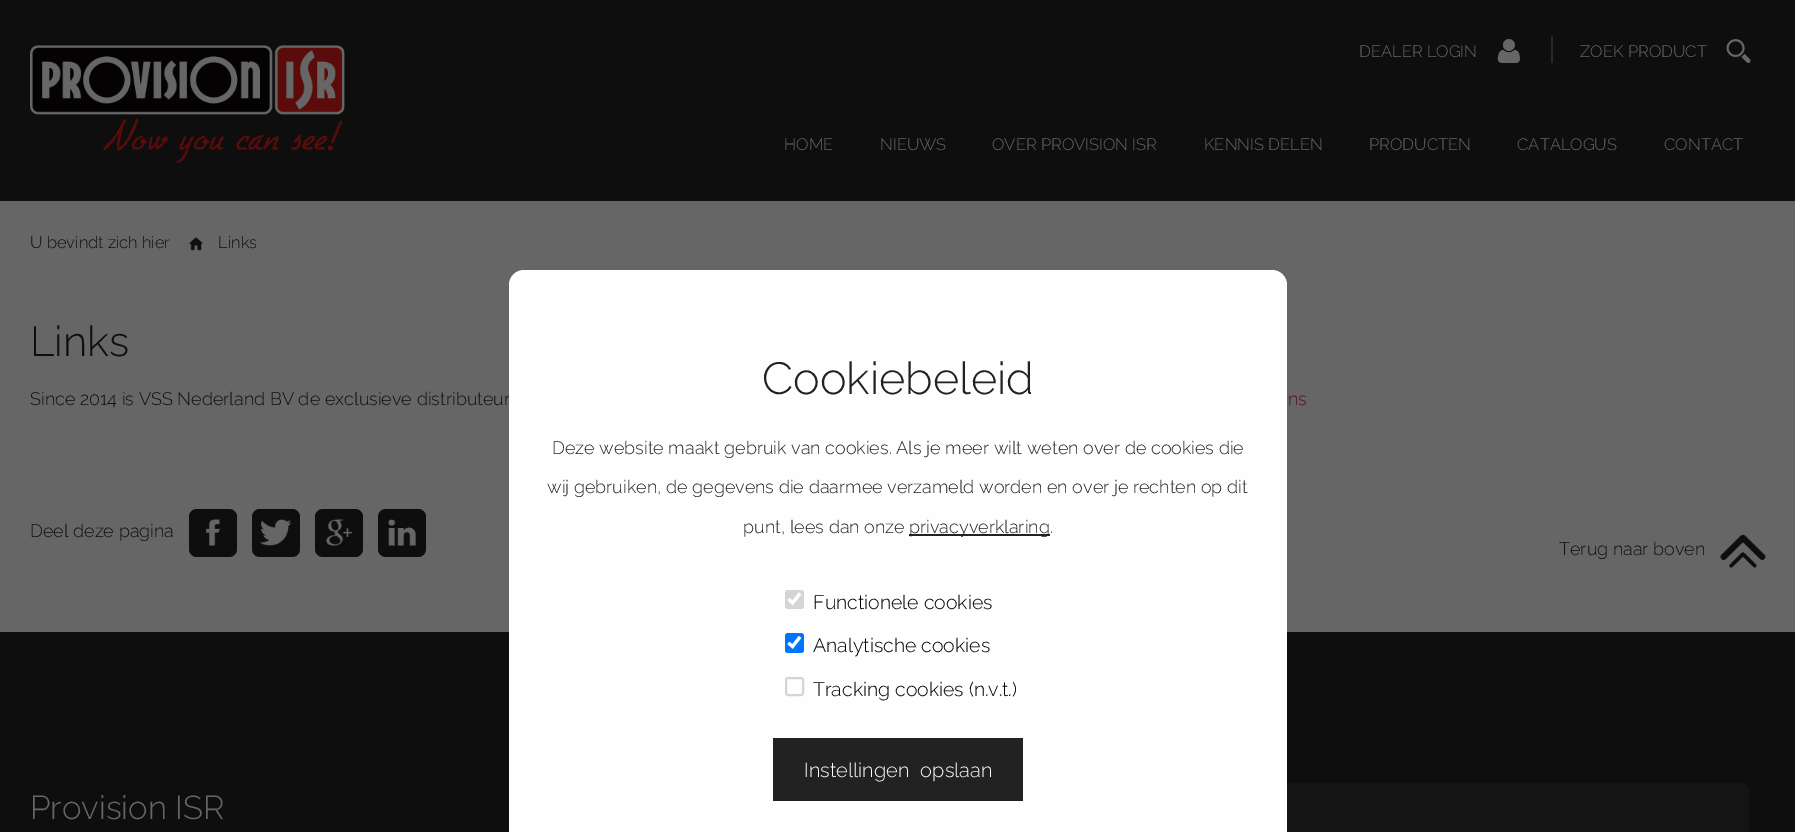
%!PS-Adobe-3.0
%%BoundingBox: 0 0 1795 832
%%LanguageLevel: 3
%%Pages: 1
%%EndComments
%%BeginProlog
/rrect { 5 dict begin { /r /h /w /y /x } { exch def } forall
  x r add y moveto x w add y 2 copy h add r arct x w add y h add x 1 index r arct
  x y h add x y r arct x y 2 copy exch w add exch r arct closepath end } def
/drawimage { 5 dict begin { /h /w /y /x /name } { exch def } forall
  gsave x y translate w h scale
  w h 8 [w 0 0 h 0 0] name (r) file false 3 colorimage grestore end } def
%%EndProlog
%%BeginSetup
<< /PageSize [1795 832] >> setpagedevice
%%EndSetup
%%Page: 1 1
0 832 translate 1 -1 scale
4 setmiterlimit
0.4 setgray
0 0 1795 832 rectfill
0.055 setgray
0 0 1795 201 rectfill
(images/1.raw) 30 45 315 119 drawimage
(images/2.raw) 1497 39 23 24 drawimage
0.161 setgray
1551 36 2 27 rectfill
(images/3.raw) 1726 39 25 24 drawimage
(images/4.raw) 189 237 14 14 drawimage
0.055 setgray
189 509 48 48 8 rrect fill
(images/5.raw) 206 519 14 27 drawimage
252 509 48 48 8 rrect fill
(images/6.raw) 259 519 33 27 drawimage
315 509 48 48 8 rrect fill
(images/7.raw) 326 519 26 27 drawimage
378 509 48 48 8 rrect fill
(images/8.raw) 388 519 29 27 drawimage
(images/9.raw) 1720 534 46 34 drawimage
0 632 1795 200 rectfill
0.078 setgray
945 783 804 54 8 rrect fill
/Raleway-Light [16.5 0 0 -16.5 0 0] selectfont
0.4 setgray
1359 57 moveto (DEALER LOGIN) show
1580 57 moveto (ZOEK PRODUCT) show
784 150 moveto (HOME) show
880 150 moveto (NIEUWS) show
992 150 moveto (OVER PROVISION ISR) show
1204 150 moveto (KENNIS DELEN) show
1369 150 moveto (PRODUCTEN) show
1517 150 moveto (CATALOGUS) show
1664 150 moveto (CONTACT) show
0.055 setgray
30 248 moveto (U bevindt zich hier) show
218 248 moveto (Links) show
/Raleway-Light [42 0 0 -42 0 0] selectfont
30 356 moveto (Links) show
/Raleway-Light [18 0 0 -18 0 0] selectfont
30 405 moveto (Since 2014 is VSS Nederland BV de exclusieve distributeur) show
0.329 0.063 0.071 setrgbcolor
1288 405 moveto (ns) show
0.996 setgray
509 270 778 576 15 rrect fill
/Raleway-Light [45 0 0 -45 0 0] selectfont
0.133 setgray
762 394 moveto (Cookiebeleid) show
/Raleway-Light [18 0 0 -18 0 0] selectfont
552 454 moveto (Deze website maakt gebruik van cookies. Als je meer wilt weten over de cookies die) show
547 493 moveto (wij gebruiken, de gegevens die daarmee verzameld worden en over je rechten op dit) show
743 533 moveto (punt, lees dan onze) show
909 534 141 2 rectfill
909 533 moveto (privacyverklaring.) show
0.835 setgray
785 590 19 19 3 rrect fill
1 setgray
3.1 setlinewidth
newpath 788.5 599 moveto 792.5 603 lineto 800 593.5 lineto stroke
/Raleway-Light [19.5 0 0 -19.5 0 0] selectfont
0 setgray
813 609 moveto (Functionele cookies) show
0 0.459 1 setrgbcolor
785 633 19 20 3 rrect fill
1 setgray
newpath 788.5 643 moveto 792.5 646.5 lineto 800 637 lineto stroke
0 setgray
813 652 moveto (Analytische cookies) show
0.835 setgray
2 setlinewidth
786 678 17 17 2 rrect stroke
0 setgray
813 696 moveto (Tracking cookies \(n.v.t.\)) show
0.133 setgray
773 738 250 63 rectfill
/Raleway-Light [20 0 0 -20 0 0] selectfont
1 setgray
804 777 moveto 6 0 32 (Instellingen opslaan) widthshow
/Raleway-Light [18 0 0 -18 0 0] selectfont
0.055 setgray
30 537 moveto (Deel deze pagina) show
1559 555 moveto (Terug naar boven) show
/Raleway-Light [33 0 0 -33 0 0] selectfont
0.4 setgray
30 819 moveto (Provision ISR) show
showpage
%%EOF
